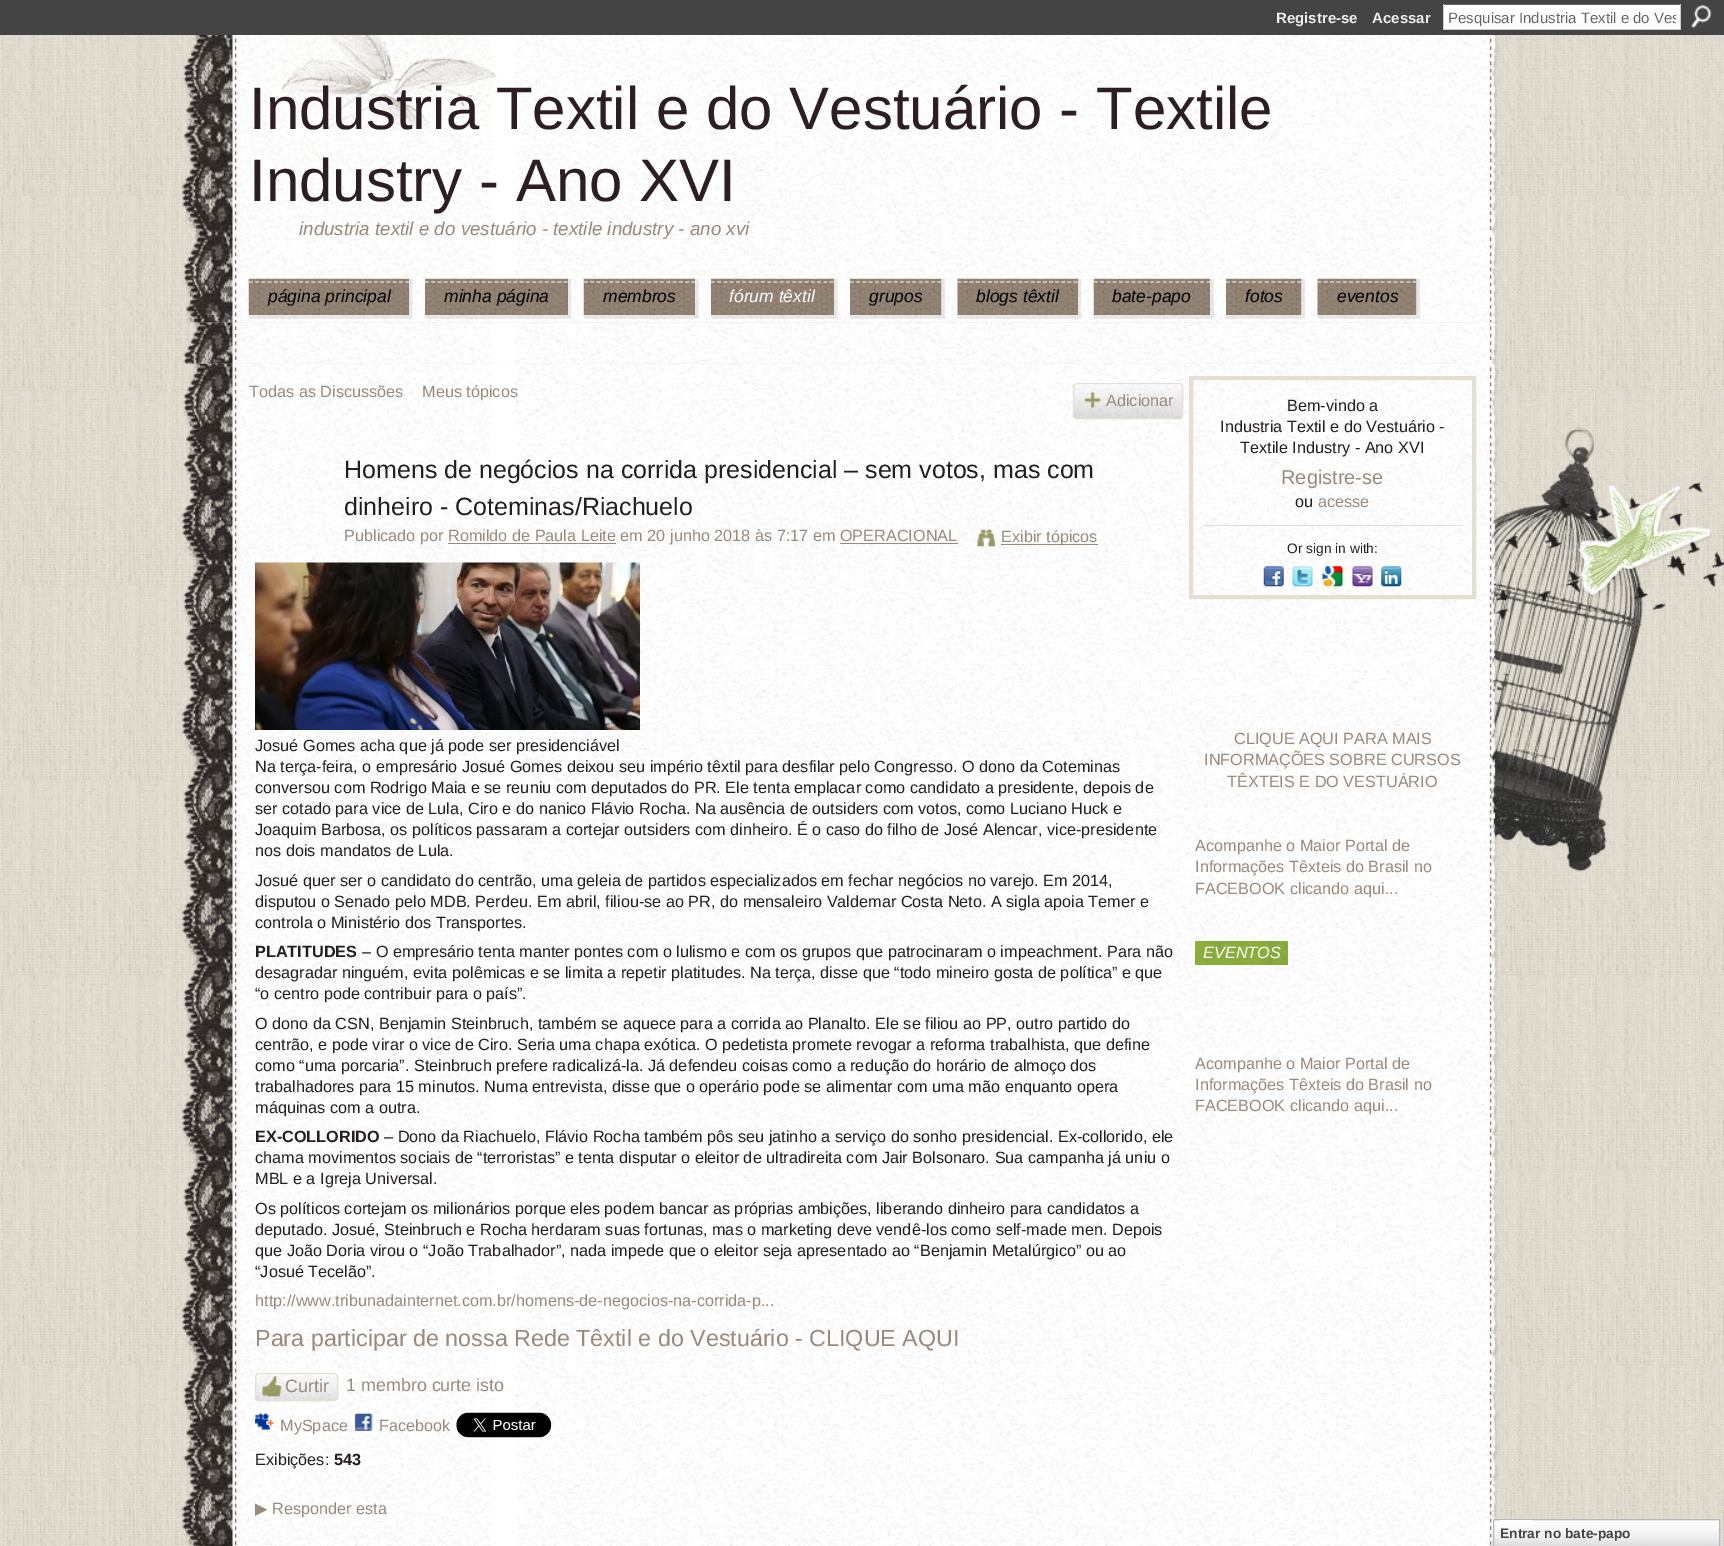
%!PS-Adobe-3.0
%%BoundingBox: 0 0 1724 1546
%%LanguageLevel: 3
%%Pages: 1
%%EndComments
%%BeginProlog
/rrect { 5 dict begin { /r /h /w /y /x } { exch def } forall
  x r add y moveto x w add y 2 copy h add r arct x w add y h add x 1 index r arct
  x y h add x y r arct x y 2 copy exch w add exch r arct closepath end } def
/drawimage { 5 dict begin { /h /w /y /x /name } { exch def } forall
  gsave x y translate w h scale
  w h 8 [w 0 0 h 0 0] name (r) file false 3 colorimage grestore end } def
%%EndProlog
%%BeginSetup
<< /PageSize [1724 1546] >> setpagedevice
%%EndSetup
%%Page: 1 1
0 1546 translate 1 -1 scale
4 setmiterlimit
1 setgray
0 0 1724 1546 rectfill
(images/1.raw) 0 35 1724 1511 drawimage
0.267 setgray
0 0 1724 35 rectfill
1 setgray
1444 5 236 24 rectfill
0.4 setgray
1443 4 238 1 rectfill
0.8 setgray
1680 4 1 26 rectfill
1443 29 238 1 rectfill
1443 4 1 26 rectfill
(images/2.raw) 1691 5 21 23 drawimage
(images/3.raw) 181 35 1317 288 drawimage
(images/4.raw) 247 35 250 130 drawimage
(images/5.raw) 248 278 165 41 drawimage
(images/6.raw) 248 278 161 37 drawimage
0.867 0.847 0.788 setrgbcolor
1.2 setlinewidth
[3.75 2.5] 0 setdash
newpath 249 282 moveto 409 282 lineto stroke
(images/7.raw) 425 278 147 41 drawimage
0.522 0.463 0.392 setrgbcolor
567 279 1 36 rectfill
(images/8.raw) 425 278 143 37 drawimage
0.867 0.847 0.788 setrgbcolor
[3.75 2.56] 0 setdash
newpath 425 282 moveto 567.5 282 lineto stroke
(images/9.raw) 583 278 116 41 drawimage
(images/10.raw) 583 278 112 37 drawimage
[3.75 2.58] 0 setdash
newpath 584 282 moveto 695 282 lineto stroke
(images/11.raw) 711 278 127 41 drawimage
(images/12.raw) 711 278 123 37 drawimage
[3.75 2.5] 0 setdash
newpath 711 282 moveto 834 282 lineto stroke
(images/13.raw) 850 278 95 41 drawimage
(images/14.raw) 850 278 92 37 drawimage
newpath 850 282 moveto 941 282 lineto stroke
(images/15.raw) 957 278 125 41 drawimage
0.522 0.463 0.392 setrgbcolor
1077 279 1 36 rectfill
(images/16.raw) 957 278 121 37 drawimage
0.867 0.847 0.788 setrgbcolor
[3.75 2.36] 0 setdash
newpath 957.5 282 moveto 1077.5 282 lineto stroke
(images/17.raw) 1093 278 121 41 drawimage
(images/18.raw) 1093 278 117 37 drawimage
[3.75 2.5] 0 setdash
newpath 1094 282 moveto 1210 282 lineto stroke
(images/19.raw) 1226 278 79 41 drawimage
(images/20.raw) 1226 278 76 37 drawimage
[3.75 2.73] 0 setdash
newpath 1226 282 moveto 1301 282 lineto stroke
(images/21.raw) 1317 278 103 41 drawimage
(images/22.raw) 1317 278 100 37 drawimage
[3.75 2.59] 0 setdash
newpath 1317.5 282 moveto 1416 282 lineto stroke
(images/23.raw) 183 322 1315 42 drawimage
(images/24.raw) 1490 427 234 445 drawimage
(images/25.raw) 181 363 1317 1183 drawimage
(images/26.raw) 1072 385 111 34 drawimage
0.894 0.871 0.827 setrgbcolor
1 setlinewidth
[] 0 setdash
1073.5 383.5 109 35 3.5 rrect stroke
(images/27.raw) 1084 392 17 16 drawimage
(images/28.raw) 977 528 19 19 drawimage
0.6 0.541 0.486 setrgbcolor
1001 544 97 1 rectfill
(images/29.raw) 255 562 385 168 drawimage
(images/30.raw) 255 1375 83 26 drawimage
0.894 0.871 0.827 setrgbcolor
255.5 1373.5 82 27 3.5 rrect stroke
(images/31.raw) 262 1376 20 21 drawimage
(images/32.raw) 255 1413 20 17 drawimage
(images/33.raw) 354 1413 19 18 drawimage
(images/34.raw) 456 1412 96 26 drawimage
4 setlinewidth
1191 378 283 219 rectstroke
1203 525 260 1 rectfill
(images/35.raw) 1263 566 21 21 drawimage
(images/36.raw) 1292 566 21 21 drawimage
(images/37.raw) 1322 566 21 21 drawimage
(images/38.raw) 1352 566 21 21 drawimage
(images/39.raw) 1381 566 21 21 drawimage
0.545 0.682 0.235 setrgbcolor
1195 941 93 24 rectfill
(images/40.raw) 1202 941 86 24 drawimage
(images/41.raw) 1492 1519 227 27 drawimage
0.718 setgray
1 setlinewidth
1493.5 1519.5 226 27 rectstroke
(images/42.raw) 1500 1520 34 1 drawimage
/LiberationSans-Bold [15 0 0 -15 0 0] selectfont
0.933 setgray
1276 23 moveto (Registre-se) show
1372 23 moveto (Acessar) show
gsave
1448 9 228 17 rectclip
/LiberationSans-Regular [15 0 0 -15 0 0] selectfont
0.4 setgray
1448 23 moveto (Pesquisar Industria Textil e do Ves) show
grestore
/LiberationSans-Regular [60 0 0 -60 0 0] selectfont
0.173 0.118 0.141 setrgbcolor
249 129 moveto (Industria Textil e do Vestuário - Textile) show
249 201 moveto (Industry - Ano XVI) show
/LiberationSans-Italic [18.75 0 0 -18.75 0 0] selectfont
0.604 0.541 0.486 setrgbcolor
299 235 moveto (industria textil e do vestuário - textile industry - ano xvi) show
/LiberationSans-Italic [17.5 0 0 -17.5 0 0] selectfont
0 setgray
268 302 moveto (página principal) show
444 302 moveto (minha página) show
603 302 moveto (membros) show
1 setgray
729 302 moveto (fórum têxtil) show
0 setgray
869 302 moveto (grupos) show
976 302 moveto (blogs têxtil) show
1112 302 moveto (bate-papo) show
1245 302 moveto (fotos) show
1337 302 moveto (eventos) show
/LiberationSans-Regular [16.25 0 0 -16.25 0 0] selectfont
0.604 0.541 0.486 setrgbcolor
249 397 moveto (Todas as Discussões) show
422 397 moveto (Meus tópicos) show
1106 406 moveto (Adicionar) show
/LiberationSans-Regular [25 0 0 -25 0 0] selectfont
0.141 0.118 0.118 setrgbcolor
344 478 moveto (Homens de negócios na corrida presidencial – sem votos, mas com) show
344 515 moveto (dinheiro - Coteminas/Riachuelo) show
/LiberationSans-Regular [16.25 0 0 -16.25 0 0] selectfont
0.604 0.541 0.486 setrgbcolor
344 541 moveto (Publicado por Romildo de Paula Leite em 20 junho 2018 às 7:17 em OPERACIONAL) show
0.6 0.541 0.486 setrgbcolor
448 543 168 1 rectfill
840 543 118 1 rectfill
0.604 0.541 0.486 setrgbcolor
1001 542 moveto (Exibir tópicos) show
0.141 0.118 0.118 setrgbcolor
255 751 moveto (Josué Gomes acha que já pode ser presidenciável) show
255 772 moveto (Na terça-feira, o empresário Josué Gomes deixou seu império têxtil para desfilar pelo Congresso. O dono da Coteminas) show
255 793 moveto (conversou com Rodrigo Maia e se reuniu com deputados do PR. Ele tenta emplacar como candidato a presidente, depois de) show
255 814 moveto (ser cotado para vice de Lula, Ciro e do nanico Flávio Rocha. Na ausência de outsiders com votos, como Luciano Huck e) show
255 835 moveto (Joaquim Barbosa, os políticos passaram a cortejar outsiders com dinheiro. É o caso do filho de José Alencar, vice-presidente) show
255 856 moveto (nos dois mandatos de Lula.) show
255 886 moveto (Josué quer ser o candidato do centrão, uma geleia de partidos especializados em fechar negócios no varejo. Em 2014,) show
255 907 moveto (disputou o Senado pelo MDB. Perdeu. Em abril, filiou-se ao PR, do mensaleiro Valdemar Costa Neto. A sigla apoia Temer e) show
255 928 moveto (controla o Ministério dos Transportes.) show
/LiberationSans-Bold [16.25 0 0 -16.25 0 0] selectfont
255 957 moveto (PLATITUDES) show
/LiberationSans-Regular [16.25 0 0 -16.25 0 0] selectfont
362 957 moveto (– O empresário tenta manter pontes com o lulismo e com os grupos que patrocinaram o impeachment. Para não) show
255 978 moveto (desagradar ninguém, evita polêmicas e se limita a repetir platitudes. Na terça, disse que “todo mineiro gosta de política” e que) show
255 999 moveto (“o centro pode contribuir para o país”.) show
255 1029 moveto (O dono da CSN, Benjamin Steinbruch, também se aquece para a corrida ao Planalto. Ele se filiou ao PP, outro partido do) show
255 1050 moveto (centrão, e pode virar o vice de Ciro. Seria uma chapa exótica. O pedetista promete revogar a reforma trabalhista, que define) show
255 1071 moveto (como “uma porcaria”. Steinbruch prefere radicalizá-la. Já defendeu coisas como a redução do horário de almoço dos) show
255 1092 moveto (trabalhadores para 15 minutos. Numa entrevista, disse que o operário pode se alimentar com uma mão enquanto opera) show
255 1113 moveto (máquinas com a outra.) show
/LiberationSans-Bold [16.25 0 0 -16.25 0 0] selectfont
255 1142 moveto (EX-COLLORIDO) show
/LiberationSans-Regular [16.25 0 0 -16.25 0 0] selectfont
384 1142 moveto (– Dono da Riachuelo, Flávio Rocha também pôs seu jatinho a serviço do sonho presidencial. Ex-collorido, ele) show
255 1163 moveto (chama movimentos sociais de “terroristas” e tenta disputar o eleitor de ultradireita com Jair Bolsonaro. Sua campanha já uniu o) show
255 1184 moveto (MBL e a Igreja Universal.) show
255 1214 moveto (Os políticos cortejam os milionários porque eles podem bancar as próprias ambições, liberando dinheiro para candidatos a) show
255 1235 moveto (deputado. Josué, Steinbruch e Rocha herdaram suas fortunas, mas o marketing deve vendê-los como self-made men. Depois) show
255 1256 moveto (que João Doria virou o “João Trabalhador”, nada impede que o eleitor seja apresentado ao “Benjamin Metalúrgico” ou ao) show
255 1277 moveto (“Josué Tecelão”.) show
0.604 0.541 0.486 setrgbcolor
255 1306 moveto (http://www.tribunadainternet.com.br/homens-de-negocios-na-corrida-p...) show
/LiberationSans-Regular [23.3 0 0 -23.3 0 0] selectfont
255 1346 moveto (Para participar de nossa Rede Têxtil e do Vestuário - CLIQUE AQUI) show
/LiberationSans-Regular [17.9 0 0 -17.9 0 0] selectfont
285 1392 moveto (Curtir) show
346 1391 moveto (1 membro curte isto) show
/LiberationSans-Regular [16.25 0 0 -16.25 0 0] selectfont
280 1431 moveto (MySpace) show
379 1431 moveto (Facebook) show
0.141 0.118 0.118 setrgbcolor
255 1465 moveto (Exibições:) show
/LiberationSans-Bold [16.25 0 0 -16.25 0 0] selectfont
334 1465 moveto (543) show
/DejaVuSans-Regular [16.25 0 0 -16.25 0 0] selectfont
0.604 0.541 0.486 setrgbcolor
255 1514 moveto (▶) show
/LiberationSans-Regular [16.25 0 0 -16.25 0 0] selectfont
272 1514 moveto (Responder esta) show
0.141 0.118 0.118 setrgbcolor
1287 411 moveto (Bem-vindo a) show
1220 432 moveto (Industria Textil e do Vestuário -) show
1240 453 moveto (Textile Industry - Ano XVI) show
/LiberationSans-Regular [20 0 0 -20 0 0] selectfont
0.604 0.541 0.486 setrgbcolor
1281 484 moveto (Registre-se) show
/LiberationSans-Regular [16.25 0 0 -16.25 0 0] selectfont
0.141 0.118 0.118 setrgbcolor
1295 507 moveto (ou) show
0.604 0.541 0.486 setrgbcolor
1318 507 moveto (acesse) show
/LiberationSans-Regular [13.75 0 0 -13.75 0 0] selectfont
0.141 0.118 0.118 setrgbcolor
1287 553 moveto (Or sign in with:) show
/LiberationSans-Regular [16.25 0 0 -16.25 0 0] selectfont
0.604 0.541 0.486 setrgbcolor
1234 744 moveto (CLIQUE AQUI PARA MAIS) show
1204 765 moveto (INFORMAÇÕES SOBRE CURSOS) show
1227 787 moveto (TÊXTEIS E DO VESTUÁRIO) show
1195 851 moveto (Acompanhe o Maior Portal de) show
1195 872 moveto (Informações Têxteis do Brasil no) show
1195 894 moveto (FACEBOOK clicando aqui...) show
/LiberationSans-Italic [16.25 0 0 -16.25 0 0] selectfont
1 setgray
1203 958 moveto (EVENTOS) show
/LiberationSans-Regular [16.25 0 0 -16.25 0 0] selectfont
0.604 0.541 0.486 setrgbcolor
1195 1069 moveto (Acompanhe o Maior Portal de) show
1195 1090 moveto (Informações Têxteis do Brasil no) show
1195 1111 moveto (FACEBOOK clicando aqui...) show
/LiberationSans-Bold [13.75 0 0 -13.75 0 0] selectfont
0.271 setgray
1500 1538 moveto (Entrar no bate-papo) show
showpage
%%EOF
